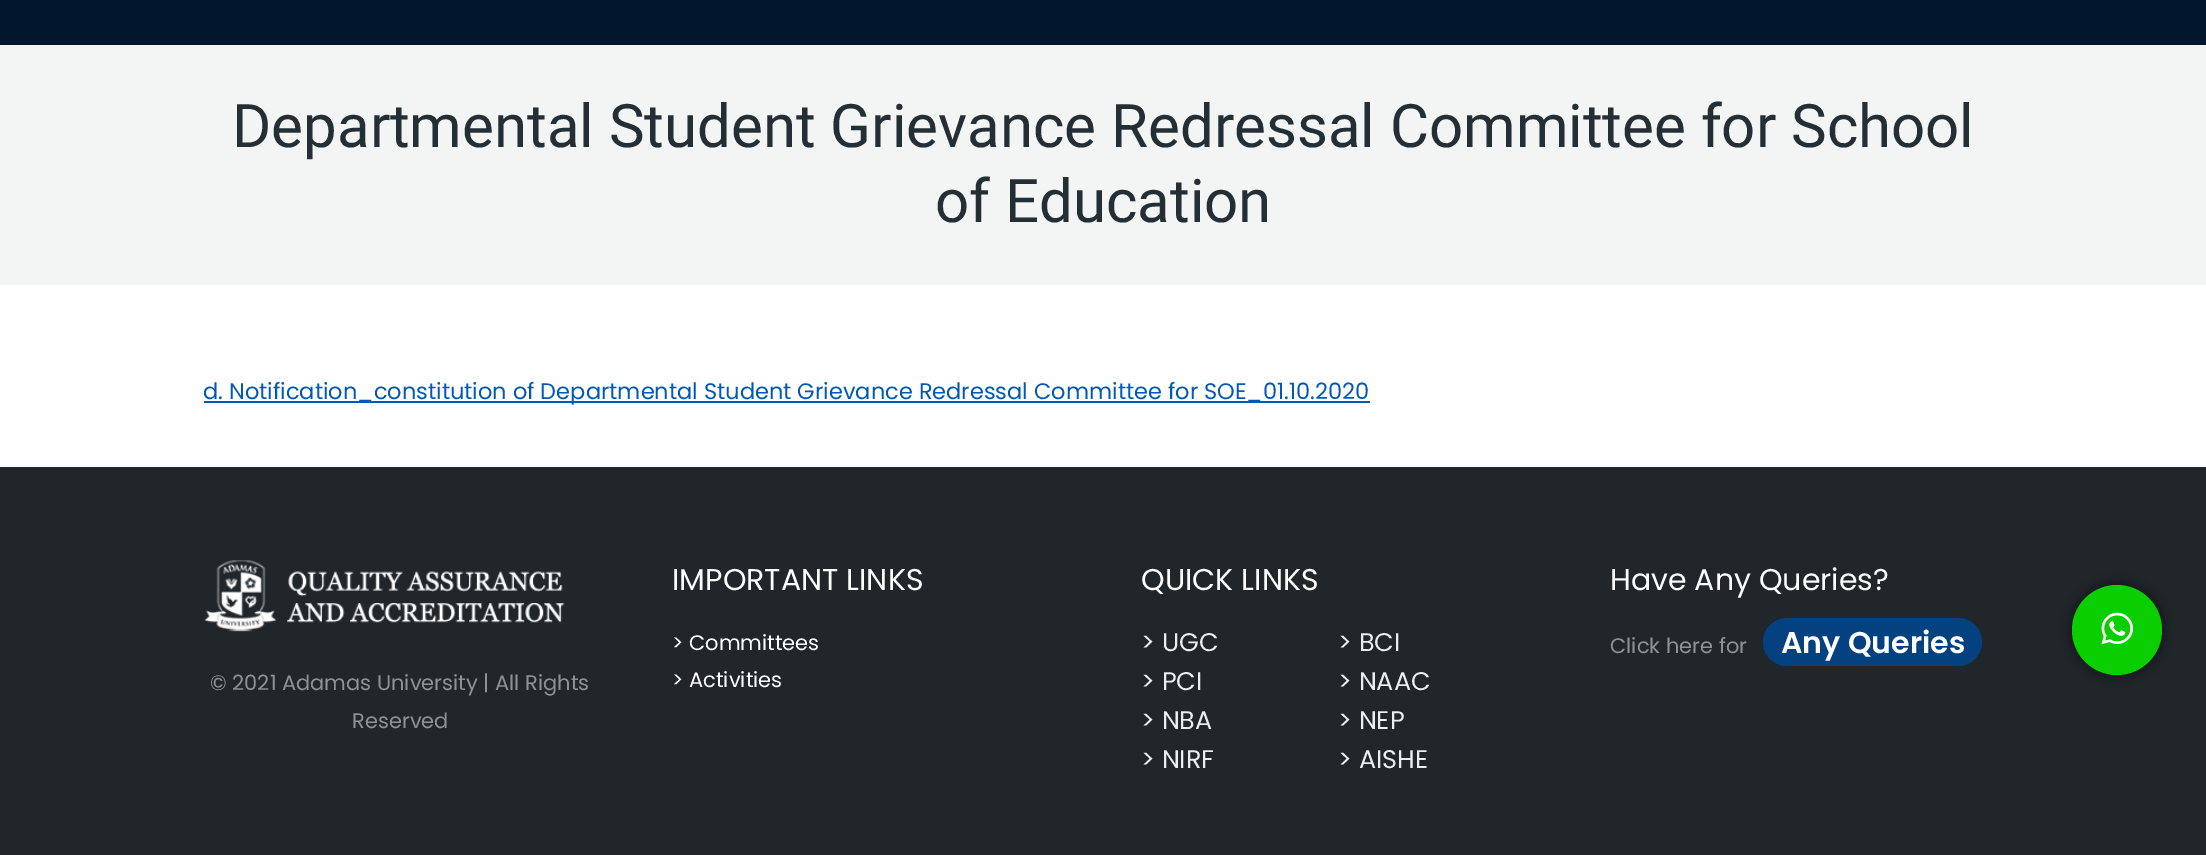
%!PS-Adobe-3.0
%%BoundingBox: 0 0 2206 855
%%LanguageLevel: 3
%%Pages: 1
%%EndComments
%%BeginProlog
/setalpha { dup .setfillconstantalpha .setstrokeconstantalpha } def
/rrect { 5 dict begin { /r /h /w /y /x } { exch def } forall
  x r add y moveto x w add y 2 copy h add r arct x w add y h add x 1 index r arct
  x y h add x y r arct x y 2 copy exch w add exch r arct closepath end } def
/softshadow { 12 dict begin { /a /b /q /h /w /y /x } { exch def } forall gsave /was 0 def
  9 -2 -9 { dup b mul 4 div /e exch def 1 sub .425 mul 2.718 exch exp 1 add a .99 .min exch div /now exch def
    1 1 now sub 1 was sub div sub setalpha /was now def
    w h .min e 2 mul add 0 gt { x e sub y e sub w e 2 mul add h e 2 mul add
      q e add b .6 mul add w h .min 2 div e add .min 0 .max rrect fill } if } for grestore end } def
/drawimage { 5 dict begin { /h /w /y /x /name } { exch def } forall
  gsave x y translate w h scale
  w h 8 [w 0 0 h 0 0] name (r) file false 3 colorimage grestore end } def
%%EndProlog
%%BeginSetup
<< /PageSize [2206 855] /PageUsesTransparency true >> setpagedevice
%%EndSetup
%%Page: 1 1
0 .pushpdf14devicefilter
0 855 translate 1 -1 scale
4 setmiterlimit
1 setgray
0 0 2206 855 rectfill
0.008 0.09 0.176 setrgbcolor
0 0 2206 45 rectfill
0.953 0.957 0.957 setrgbcolor
0 45 2206 240 rectfill
0 0.353 0.71 setrgbcolor
204 401 1166 2 rectfill
0.125 0.149 0.165 setrgbcolor
0 467 2206 388 rectfill
(images/1.raw) 205 560 360 72 drawimage
0.012 0.255 0.502 setrgbcolor
1763 618 219 48 24 rrect fill
0 setgray
2072 585 90 90 45 6 0.5 softshadow
0.039 0.808 0 setrgbcolor
newpath 2117 630 45 0 360 arc closepath fill
(images/2.raw) 2101 612 32 33 drawimage
/Roboto-Regular [60 0 0 -60 0 0] selectfont
0.141 0.18 0.208 setrgbcolor
232 147 moveto (Departmental Student Grievance Redressal Committee for School) show
935 222 moveto (of Education) show
/Poppins-Regular [22.5 0 0 -22.5 0 0] selectfont
0 0.353 0.71 setrgbcolor
203 399 moveto (d. Notification_constitution of Departmental Student Grievance Redressal Committee for SOE_01.10.2020) show
/Poppins-Regular [21 0 0 -21 0 0] selectfont
0.561 0.573 0.58 setrgbcolor
210 690 moveto (© 2021 Adamas University | All Rights) show
352 728 moveto (Reserved) show
/Poppins-Regular [30 0 0 -30 0 0] selectfont
1 setgray
672 590 moveto (IMPORTANT LINKS) show
/Poppins-Regular [21 0 0 -21 0 0] selectfont
672 650 moveto (> Committees) show
672 687 moveto (> Activities) show
/Poppins-Regular [30 0 0 -30 0 0] selectfont
1141 590 moveto (QUICK LINKS) show
/Poppins-Regular [25.5 0 0 -25.5 0 0] selectfont
0.922 0.929 0.937 setrgbcolor
1141 651 moveto (> UGC) show
1141 690 moveto (> PCI) show
1141 729 moveto (> NBA) show
1141 768 moveto (> NIRF) show
1338 651 moveto (> BCI) show
1338 690 moveto (> NAAC) show
1338 729 moveto (> NEP) show
1338 768 moveto (> AISHE) show
/Poppins-Regular [30 0 0 -30 0 0] selectfont
1 setgray
1610 590 moveto (Have Any Queries?) show
/Poppins-Regular [21 0 0 -21 0 0] selectfont
0.561 0.573 0.58 setrgbcolor
1610 653 moveto (Click here for) show
/Poppins-SemiBold [30 0 0 -30 0 0] selectfont
1 setgray
1781 653 moveto (Any Queries) show
.poppdf14devicefilter showpage
%%EOF
